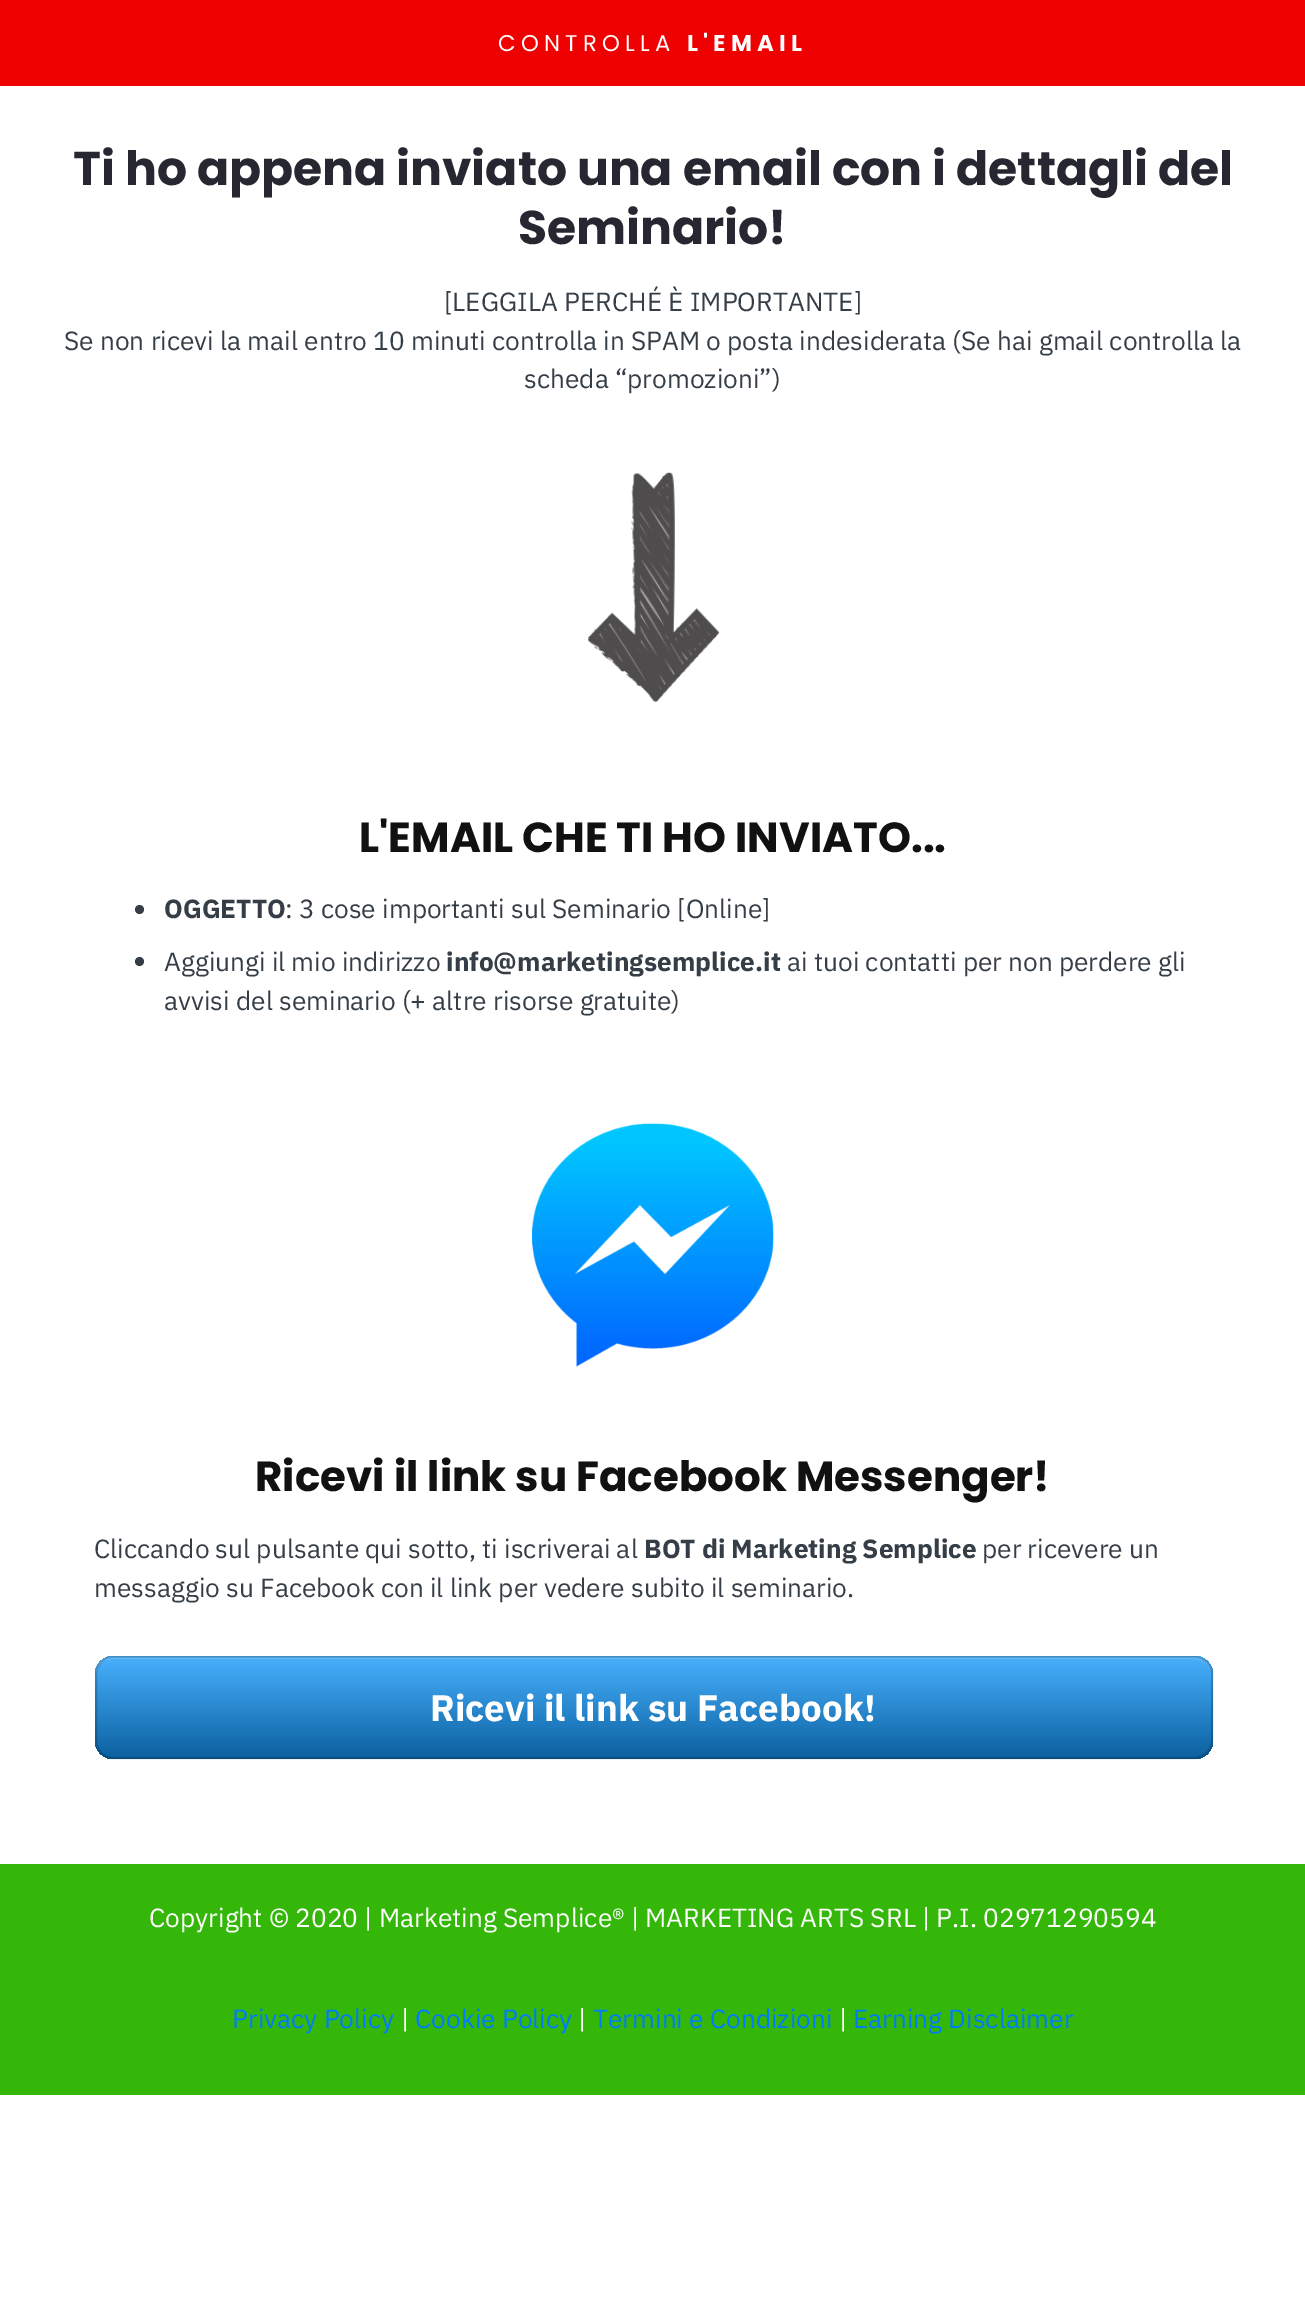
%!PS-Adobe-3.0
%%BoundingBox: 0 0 1305 2318
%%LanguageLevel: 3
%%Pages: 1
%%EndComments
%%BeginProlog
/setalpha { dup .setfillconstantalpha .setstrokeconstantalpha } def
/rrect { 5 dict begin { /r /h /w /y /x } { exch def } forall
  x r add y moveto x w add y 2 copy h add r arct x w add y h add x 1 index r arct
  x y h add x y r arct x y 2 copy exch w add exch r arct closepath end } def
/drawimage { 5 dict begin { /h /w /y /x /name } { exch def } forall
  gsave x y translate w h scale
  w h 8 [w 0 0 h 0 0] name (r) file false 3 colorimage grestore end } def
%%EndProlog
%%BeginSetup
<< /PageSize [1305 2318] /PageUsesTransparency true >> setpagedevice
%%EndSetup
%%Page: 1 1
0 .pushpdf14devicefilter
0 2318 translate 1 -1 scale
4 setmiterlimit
1 setgray
0 0 1305 2318 rectfill
0.941 0.004 0.004 setrgbcolor
0 0 1305 86 rectfill
(images/1.raw) 588 472 132 230 drawimage
0.208 0.239 0.275 setrgbcolor
newpath 139.5 909.5 4.5 0 360 arc closepath fill
newpath 139.5 961.5 4.5 0 360 arc closepath fill
(images/2.raw) 532 1123 242 244 drawimage
gsave 95 1656 1118 103 18 rrect clip newpath
<< /ShadingType 2 /ColorSpace /DeviceRGB /Coords [654 1656 654 1759] /Extend [true true] /Function << /FunctionType 2 /Domain [0 1] /C0 [0.282 0.694 1] /C1 [0.043 0.376 0.624] /N 1 >> >> shfill grestore
0.22 setalpha
1 setgray
newpath 112 1659 moveto 103 1659 96 1666 96 1675 curveto 96 1673 lineto 96 1664 103 1657 112 1657 curveto 1195 1657 lineto 1204 1657 1211 1664 1211 1673 curveto 1211 1675 lineto 1211 1666 1204 1659 1195 1659 curveto closepath fill
0.2 setalpha
0 setgray
2 setlinewidth
96 1657 1116 101 17 rrect stroke
1 setalpha
0.204 0.718 0.035 setrgbcolor
0 1864 1305 231 rectfill
/Poppins-Regular [22.75 0 0 -22.75 0 0] selectfont
1 setgray
498 51 moveto 5.25 0 (CONTROLLA) ashow
/Poppins-Bold [22.75 0 0 -22.75 0 0] selectfont
687 51 moveto 5.25 0 (L'EMAIL) ashow
/Poppins-Bold [47.25 0 0 -47.25 0 0] selectfont
0.153 0.153 0.196 setrgbcolor
73 185 moveto (Ti ho appena inviato una email con i dettagli del) show
518 244 moveto (Seminario!) show
/IBMPlexSans-Regular [26.25 0 0 -26.25 0 0] selectfont
0.208 0.239 0.275 setrgbcolor
444 311 moveto ([LEGGILA PERCHÉ È IMPORTANTE]) show
64 350 moveto (Se non ricevi la mail entro 10 minuti controlla in SPAM o posta indesiderata \(Se hai gmail controlla la) show
524 388 moveto (scheda “promozioni”\)) show
/Poppins-Bold [42 0 0 -42 0 0] selectfont
0.067 setgray
359 852 moveto (L'EMAIL CHE TI HO INVIATO...) show
/IBMPlexSans-Bold [26.25 0 0 -26.25 0 0] selectfont
0.208 0.239 0.275 setrgbcolor
164 918 moveto (OGGETTO) show
/IBMPlexSans-Regular [26.25 0 0 -26.25 0 0] selectfont
285 918 moveto (: 3 cose importanti sul Seminario [Online]) show
164 971 moveto (Aggiungi il mio indirizzo) show
/IBMPlexSans-Bold [26.25 0 0 -26.25 0 0] selectfont
446 971 moveto (info@marketingsemplice.it) show
/IBMPlexSans-Regular [26.25 0 0 -26.25 0 0] selectfont
787 971 moveto (ai tuoi contatti per non perdere gli) show
164 1010 moveto (avvisi del seminario \(+ altre risorse gratuite\)) show
/Poppins-Bold [42 0 0 -42 0 0] selectfont
0.067 setgray
255 1491 moveto (Ricevi il link su Facebook Messenger!) show
/IBMPlexSans-Regular [26.25 0 0 -26.25 0 0] selectfont
0.208 0.239 0.275 setrgbcolor
94 1558 moveto (Cliccando sul pulsante qui sotto, ti iscriverai al) show
/IBMPlexSans-Bold [26.25 0 0 -26.25 0 0] selectfont
644 1558 moveto (BOT di Marketing Semplice) show
/IBMPlexSans-Regular [26.25 0 0 -26.25 0 0] selectfont
982 1558 moveto (per ricevere un) show
94 1597 moveto (messaggio su Facebook con il link per vedere subito il seminario.) show
/IBMPlexSans-Bold [36.75 0 0 -36.75 0 0] selectfont
1 setgray
430 1721 moveto (Ricevi il link su Facebook!) show
/IBMPlexSans-Regular [26.25 0 0 -26.25 0 0] selectfont
149 1927 moveto (Copyright © 2020 | Marketing Semplice® | MARKETING ARTS SRL | P.I. 02971290594) show
0 0.482 1 setrgbcolor
232 2028 moveto (Privacy Policy) show
1 setgray
401 2028 moveto (|) show
0 0.482 1 setrgbcolor
415 2028 moveto (Cookie Policy) show
1 setgray
578 2028 moveto (|) show
0 0.482 1 setrgbcolor
593 2028 moveto (Termini e Condizioni) show
1 setgray
839 2028 moveto (|) show
0 0.482 1 setrgbcolor
853 2028 moveto (Earning Disclaimer) show
.poppdf14devicefilter showpage
%%EOF
